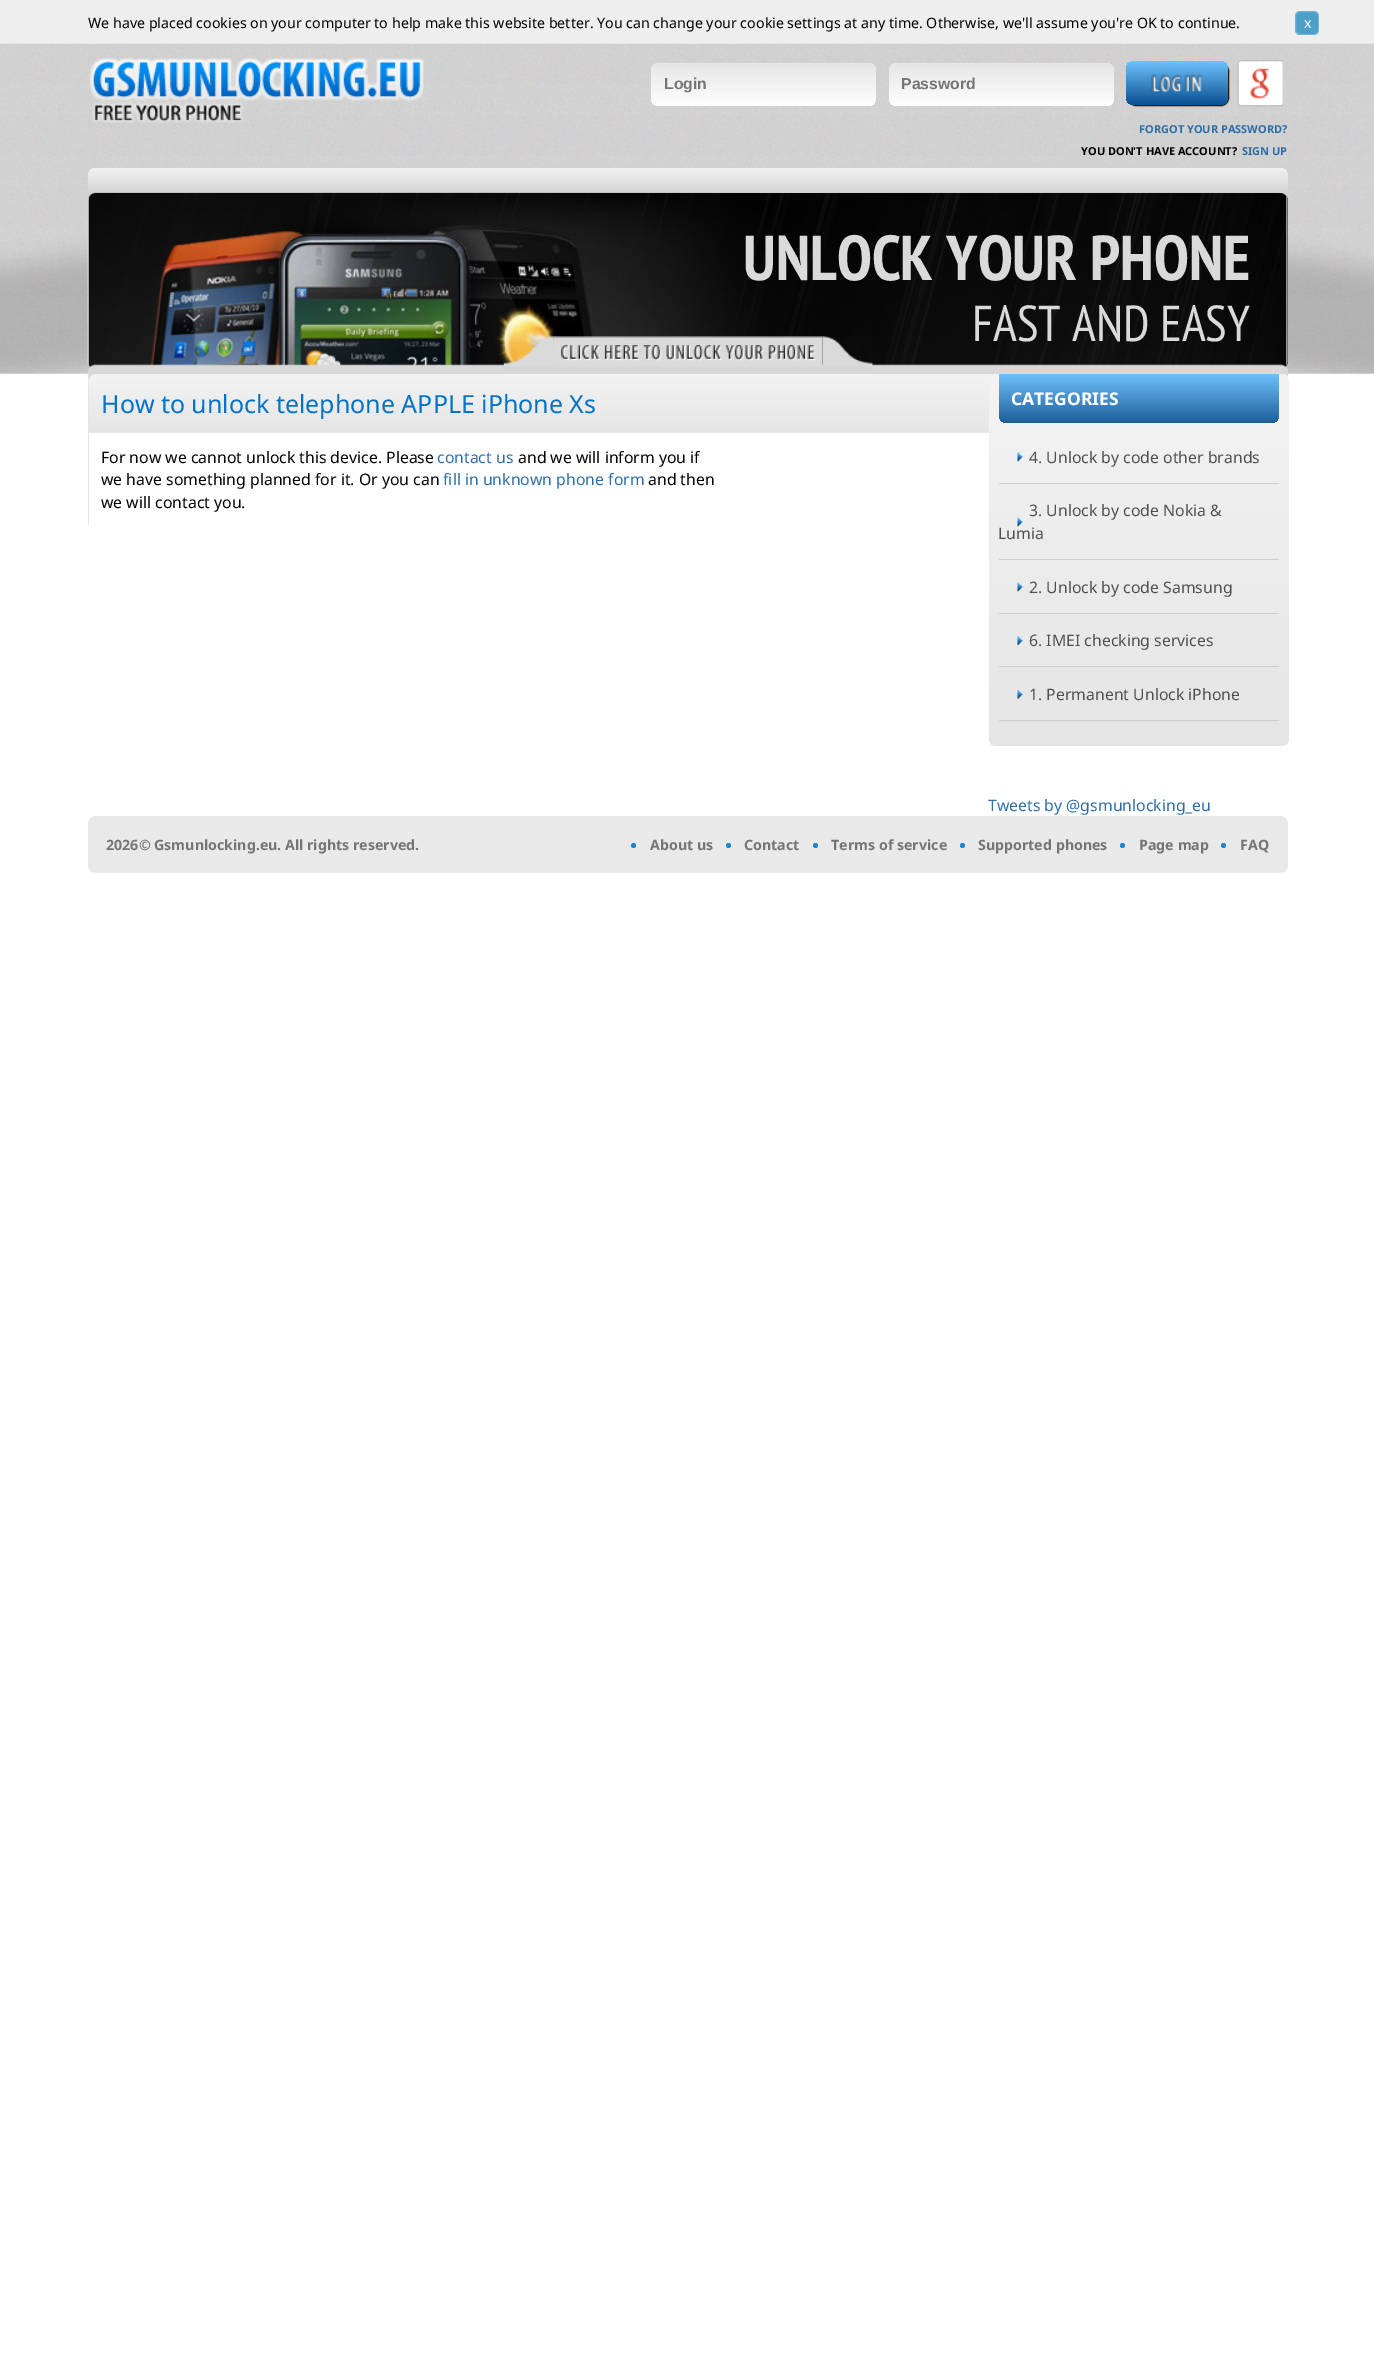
%!PS-Adobe-3.0
%%BoundingBox: 0 0 1374 2361
%%LanguageLevel: 3
%%Pages: 1
%%EndComments
%%BeginProlog
/setalpha { dup .setfillconstantalpha .setstrokeconstantalpha } def
/rrect { 5 dict begin { /r /h /w /y /x } { exch def } forall
  x r add y moveto x w add y 2 copy h add r arct x w add y h add x 1 index r arct
  x y h add x y r arct x y 2 copy exch w add exch r arct closepath end } def
/softshadow { 12 dict begin { /a /b /q /h /w /y /x } { exch def } forall gsave /was 0 def
  9 -2 -9 { dup b mul 4 div /e exch def 1 sub .425 mul 2.718 exch exp 1 add a .99 .min exch div /now exch def
    1 1 now sub 1 was sub div sub setalpha /was now def
    w h .min e 2 mul add 0 gt { x e sub y e sub w e 2 mul add h e 2 mul add
      q e add b .6 mul add w h .min 2 div e add .min 0 .max rrect fill } if } for grestore end } def
/drawimage { 5 dict begin { /h /w /y /x /name } { exch def } forall
  gsave x y translate w h scale
  w h 8 [w 0 0 h 0 0] name (r) file false 3 colorimage grestore end } def
%%EndProlog
%%BeginSetup
<< /PageSize [1374 2361] /PageUsesTransparency true >> setpagedevice
%%EndSetup
%%Page: 1 1
0 .pushpdf14devicefilter
0 2361 translate 1 -1 scale
4 setmiterlimit
1 setgray
0 0 1374 2361 rectfill
0.933 setgray
0 0 1374 44 rectfill
0.298 0.627 0.78 setrgbcolor
1295 11 24 24 5 rrect fill
0.2 setalpha
1 setgray
1295.5 11.5 23 23 4.5 rrect stroke
1 setalpha
(images/1.raw) 0 43 1374 331 drawimage
(images/2.raw) 0 203 1374 171 drawimage
(images/3.raw) 89 57 335 66 drawimage
gsave 651 63 225 43 8 rrect clip newpath
<< /ShadingType 2 /ColorSpace /DeviceRGB /Coords [651 63 651 106] /Extend [true true] /Function << /FunctionType 2 /Domain [0 1] /C0 [0.902 0.902 0.902] /C1 [0.996 0.996 0.996] /N 1 >> >> shfill grestore
gsave 889 63 225 43 8 rrect clip newpath
<< /ShadingType 2 /ColorSpace /DeviceRGB /Coords [889 63 889 106] /Extend [true true] /Function << /FunctionType 2 /Domain [0 1] /C0 [0.902 0.902 0.902] /C1 [0.996 0.996 0.996] /N 1 >> >> shfill grestore
0 setgray
1128 63 101 43 8 0.5 1 softshadow
gsave 1126 61 102 44 8 rrect clip newpath
<< /ShadingType 2 /ColorSpace /DeviceRGB /Coords [1126 61 1126 105] /Extend [true true] /Function << /FunctionType 2 /Domain [0 1] /C0 [0.435 0.761 0.988] /C1 [0.035 0.318 0.573] /N 1 >> >> shfill grestore
(images/4.raw) 1151 74 52 19 drawimage
(images/5.raw) 1237 60 46 47 drawimage
gsave newpath 96 168 moveto 1280 168 lineto 1284.5 168 1288 171.5 1288 176 curveto 1288 193 lineto 88 193 lineto 88 176 lineto 88 171.5 91.5 168 96 168 curveto closepath clip newpath
<< /ShadingType 2 /ColorSpace /DeviceRGB /Coords [88 168 88 193] /Extend [true true] /Function << /FunctionType 2 /Domain [0 1] /C0 [0.945 0.945 0.945] /C1 [0.831 0.831 0.831] /N 1 >> >> shfill grestore
88 193 1200 176 8 rrect fill
(images/6.raw) 87 192 1201 176 drawimage
0.855 setgray
88 365 1200 15 7.5 0.5 1 softshadow
gsave newpath 95.5 366 moveto 1280.5 366 lineto 1284.5 366 1288 369.5 1288 373.5 curveto 1288 381 lineto 88 381 lineto 88 373.5 lineto 88 369.5 91.5 366 95.5 366 curveto closepath clip newpath
<< /ShadingType 2 /ColorSpace /DeviceRGB /Coords [88 366 88 381] /Extend [true true] /Function << /FunctionType 2 /Domain [0 1] /C0 [0.855 0.855 0.855] /C1 [0.843 0.843 0.843] /N 1 >> >> shfill grestore
(images/7.raw) 503 336 51 34 drawimage
(images/8.raw) 553 336 270 34 drawimage
(images/9.raw) 822 336 51 34 drawimage
(images/10.raw) 561 345 254 16 drawimage
0.898 setgray
88 374 1 151 rectfill
gsave newpath 97 374 moveto 1281 374 lineto 1285.5 374 1289 377.5 1289 382 curveto 1289 433 lineto 89 433 lineto 89 382 lineto 89 377.5 92.5 374 97 374 curveto closepath clip newpath
<< /ShadingType 2 /ColorSpace /DeviceRGB /Coords [89 374 89 433] /Extend [true true] /Function << /FunctionType 2 /Domain [0 1] /C0 [0.953 0.953 0.953] /C1 [0.898 0.898 0.898] /N 1 >> >> shfill grestore
gsave 989 374 300 372 8 rrect clip newpath
<< /ShadingType 2 /ColorSpace /DeviceRGB /Coords [989 374 989 746] /Extend [true true] /Function << /FunctionType 2 /Domain [0 1] /C0 [0.953 0.953 0.953] /C1 [0.898 0.898 0.898] /N 1 >> >> shfill grestore
gsave newpath 999 374 moveto 1279 374 lineto 1279 415 lineto 1279 419.5 1275.5 423 1271 423 curveto 1007 423 lineto 1002.5 423 999 419.5 999 415 curveto closepath clip newpath
<< /ShadingType 2 /ColorSpace /DeviceRGB /Coords [999 374 999 423] /Extend [true true] /Function << /FunctionType 2 /Domain [0 1] /C0 [0.435 0.761 0.988] /C1 [0.114 0.365 0.596] /N 1 >> >> shfill grestore
0.808 setgray
999 483 280 1 rectfill
(images/11.raw) 1017 452 6 10 drawimage
999 559 280 1 rectfill
(images/12.raw) 1017 517 6 10 drawimage
999 613 280 1 rectfill
(images/13.raw) 1017 582 6 10 drawimage
999 666 280 1 rectfill
(images/14.raw) 1017 636 6 9 drawimage
999 720 280 1 rectfill
(images/15.raw) 1017 690 6 9 drawimage
0.914 setgray
88 816 1200 57 8 rrect fill
0.118 0.522 0.827 setrgbcolor
newpath 633.5 845.5 2.5 0 360 arc closepath fill
newpath 728.5 845.5 2.5 0 360 arc closepath fill
newpath 815.5 845.5 2.5 0 360 arc closepath fill
newpath 962.5 845.5 2.5 0 360 arc closepath fill
newpath 1122.5 845.5 2.5 0 360 arc closepath fill
newpath 1223.5 845.5 2.5 0 360 arc closepath fill
/NotoSans-Regular [14.22 0 0 -14.22 0 0] selectfont
0 setgray
88 28 moveto (We have placed cookies on your computer to help make this website better. You can change your cookie settings at any time. Otherwise, we'll assume you're OK to continue.) show
1 setgray
1304 28 moveto (x) show
/LiberationSans-Bold [15.8 0 0 -15.8 0 0] selectfont
0.459 setgray
664 89 moveto (Login) show
901 89 moveto (Password) show
/NotoSans-Bold [11 0 0 -11 0 0] selectfont
0.176 0.427 0.651 setrgbcolor
1139 133 moveto (FORGOT YOUR PASSWORD?) show
0 setgray
1081 155 moveto (YOU DON'T HAVE ACCOUNT?) show
0.176 0.427 0.651 setrgbcolor
1242 155 moveto (SIGN UP) show
/PTSansNarrow-Bold [63.25 0 0 -63.25 0 0] selectfont
0.855 setgray
743 280 moveto (UNLOCK YOUR PHONE) show
/PTSansNarrow-Regular [50.5 0 0 -50.5 0 0] selectfont
972 341 moveto (FAST AND EASY) show
/NotoSans-Regular [25 0 0 -25 0 0] selectfont
0 0.447 0.784 setrgbcolor
101 413 moveto (How to unlock telephone APPLE iPhone Xs) show
/NotoSans-Regular [15.8 0 0 -15.8 0 0] selectfont
0 setgray
101 463 moveto (For now we cannot unlock this device. Please) show
0.176 0.427 0.651 setrgbcolor
437 463 moveto (contact us) show
0 setgray
518 463 moveto (and we will inform you if) show
101 485 moveto (we have something planned for it. Or you can) show
0.176 0.427 0.651 setrgbcolor
443 485 moveto (fill in unknown phone form) show
0 setgray
648 485 moveto (and then) show
101 508 moveto (we will contact you.) show
/NotoSans-Bold [17.5 0 0 -17.5 0 0] selectfont
1 setgray
1011 405 moveto (CATEGORIES) show
/NotoSans-Regular [15.8 0 0 -15.8 0 0] selectfont
0.31 setgray
1029 463 moveto (4. Unlock by code other brands) show
1029 516 moveto (3. Unlock by code Nokia &) show
998 539 moveto (Lumia) show
1029 593 moveto (2. Unlock by code Samsung) show
1029 646 moveto (6. IMEI checking services) show
1029 700 moveto (1. Permanent Unlock iPhone) show
0.176 0.427 0.651 setrgbcolor
988 811 moveto (Tweets by @gsmunlocking_eu) show
/NotoSans-Bold [14.22 0 0 -14.22 0 0] selectfont
0.459 setgray
106 850 moveto (2026© Gsmunlocking.eu. All rights reserved.) show
650 850 moveto (About us) show
744 850 moveto (Contact) show
831 850 moveto (Terms of service) show
978 850 moveto (Supported phones) show
1139 850 moveto (Page map) show
1240 850 moveto (FAQ) show
.poppdf14devicefilter showpage
%%EOF
